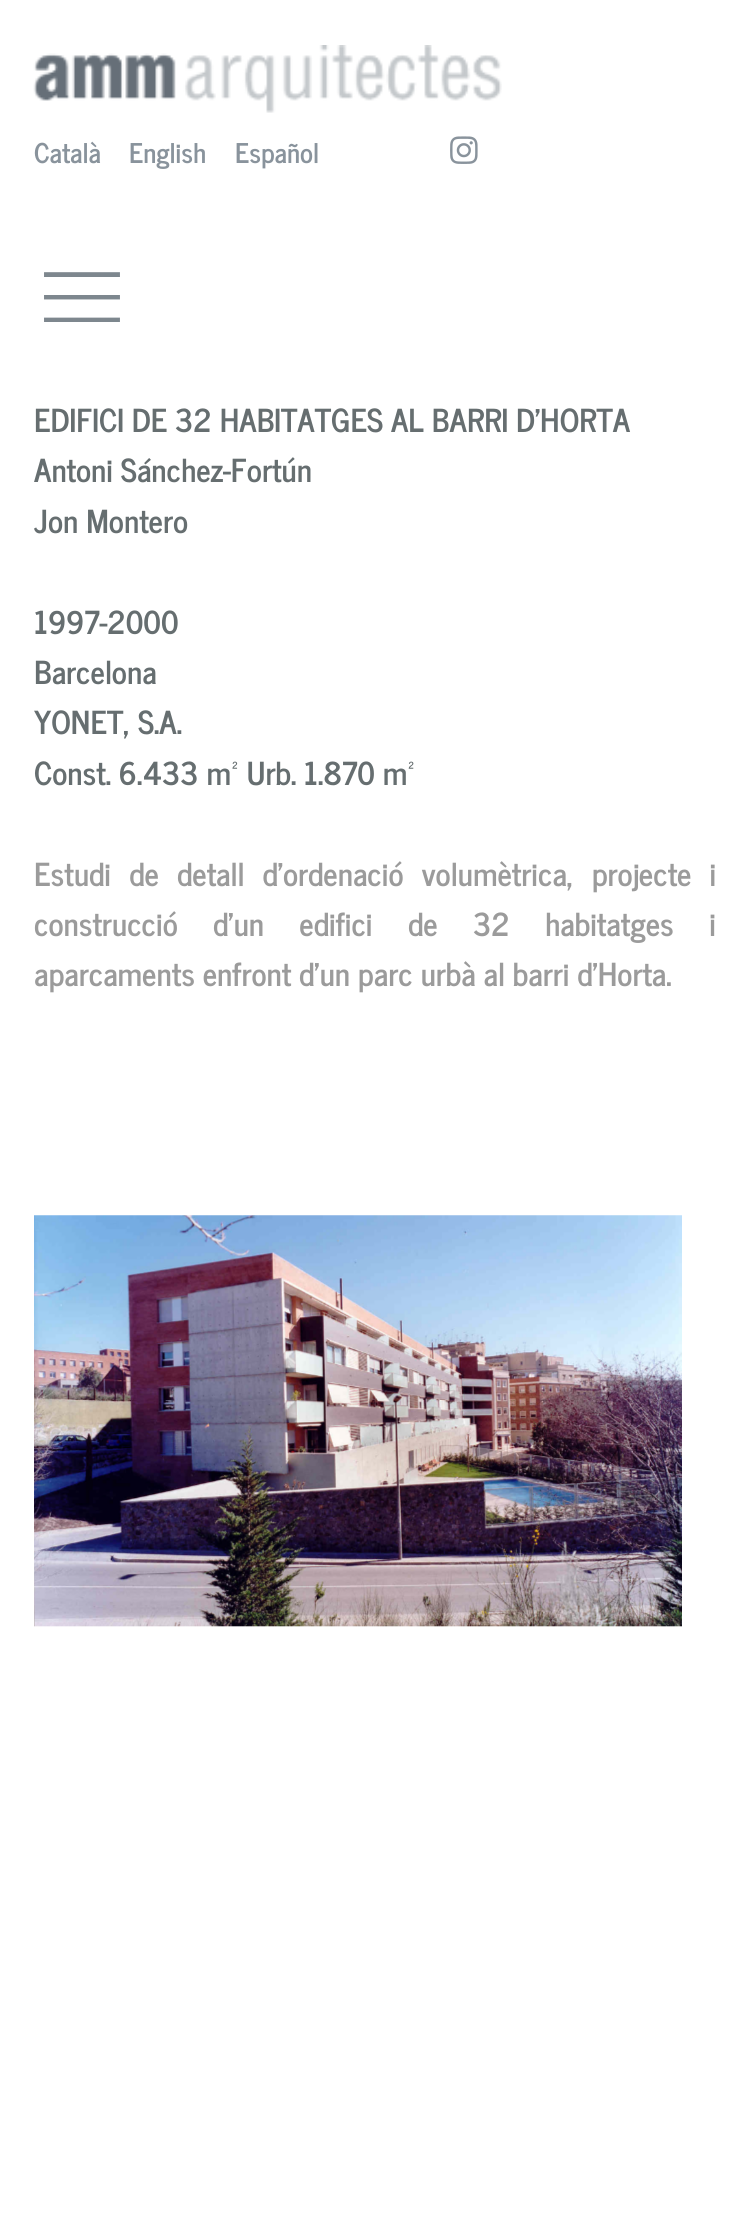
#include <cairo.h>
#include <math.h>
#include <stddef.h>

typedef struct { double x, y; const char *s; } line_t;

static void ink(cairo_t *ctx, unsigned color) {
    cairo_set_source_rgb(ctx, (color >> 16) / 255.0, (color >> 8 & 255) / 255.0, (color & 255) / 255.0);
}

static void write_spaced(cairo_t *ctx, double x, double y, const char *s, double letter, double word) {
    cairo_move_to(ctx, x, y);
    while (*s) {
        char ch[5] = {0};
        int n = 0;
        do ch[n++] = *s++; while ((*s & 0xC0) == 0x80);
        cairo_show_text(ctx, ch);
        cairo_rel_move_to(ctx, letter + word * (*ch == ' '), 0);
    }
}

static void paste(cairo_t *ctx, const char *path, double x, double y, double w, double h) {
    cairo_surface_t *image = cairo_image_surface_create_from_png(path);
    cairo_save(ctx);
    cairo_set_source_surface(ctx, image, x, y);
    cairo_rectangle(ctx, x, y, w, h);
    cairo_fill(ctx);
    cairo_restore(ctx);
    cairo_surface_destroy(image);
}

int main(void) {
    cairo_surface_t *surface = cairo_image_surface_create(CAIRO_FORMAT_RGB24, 749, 2237);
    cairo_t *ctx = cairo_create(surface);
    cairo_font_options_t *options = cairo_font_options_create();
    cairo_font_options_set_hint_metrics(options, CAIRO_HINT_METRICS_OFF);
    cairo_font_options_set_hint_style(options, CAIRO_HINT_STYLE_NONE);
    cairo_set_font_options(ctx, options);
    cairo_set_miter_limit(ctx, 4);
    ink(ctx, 0xFFFFFF);
    cairo_paint(ctx);
    paste(ctx, "media/1.png", 33, 45, 469, 68);
    cairo_select_font_face(ctx, "News Cycle", CAIRO_FONT_SLANT_NORMAL, CAIRO_FONT_WEIGHT_BOLD);
    cairo_set_font_size(ctx, 27);
    ink(ctx, 0x89939C);
    {
        static const line_t items[] = {
            {34, 163, "Català"},
            {129, 163, "English"},
            {235, 163, "Español"},
        };
        for (size_t i = 0; i < sizeof items / sizeof *items; i++) {
            cairo_move_to(ctx, items[i].x, items[i].y);
            cairo_show_text(ctx, items[i].s);
        }
    }
    paste(ctx, "media/2.png", 450, 136, 28, 28);
    paste(ctx, "media/3.png", 44, 272, 76, 50);
    cairo_set_font_size(ctx, 31.5);
    ink(ctx, 0x666E70);
    {
        static const line_t items[] = {
            {34, 432, "EDIFICI DE 32 HABITATGES AL BARRI D'HORTA"},
            {34, 482, "Antoni Sánchez-Fortún"},
            {34, 533, "Jon Montero"},
            {34, 634, "1997-2000"},
            {34, 684, "Barcelona"},
            {34, 734, "YONET, S.A."},
            {34, 785, "Const. 6.433 m² Urb. 1.870 m²"},
        };
        for (size_t i = 0; i < sizeof items / sizeof *items; i++) {
            cairo_move_to(ctx, items[i].x, items[i].y);
            cairo_show_text(ctx, items[i].s);
        }
    }
    ink(ctx, 0x9B9B9B);
    write_spaced(ctx, 34, 886, "Estudi de detall d’ordenació volumètrica, projecte i", 0, 10.25);
    cairo_move_to(ctx, 34, 936);
    cairo_show_text(ctx, "construcció");
    write_spaced(ctx, 213, 936, "d’un edifici de 32 habitatges i", 0, 27.5);
    cairo_move_to(ctx, 34, 986);
    cairo_show_text(ctx, "aparcaments enfront d’un parc urbà al barri d’Horta.");
    paste(ctx, "media/4.png", 34, 1215, 648, 412);
    cairo_surface_write_to_png(surface, "image.png");
    cairo_font_options_destroy(options);
    cairo_destroy(ctx);
    cairo_surface_destroy(surface);
    return 0;
}
